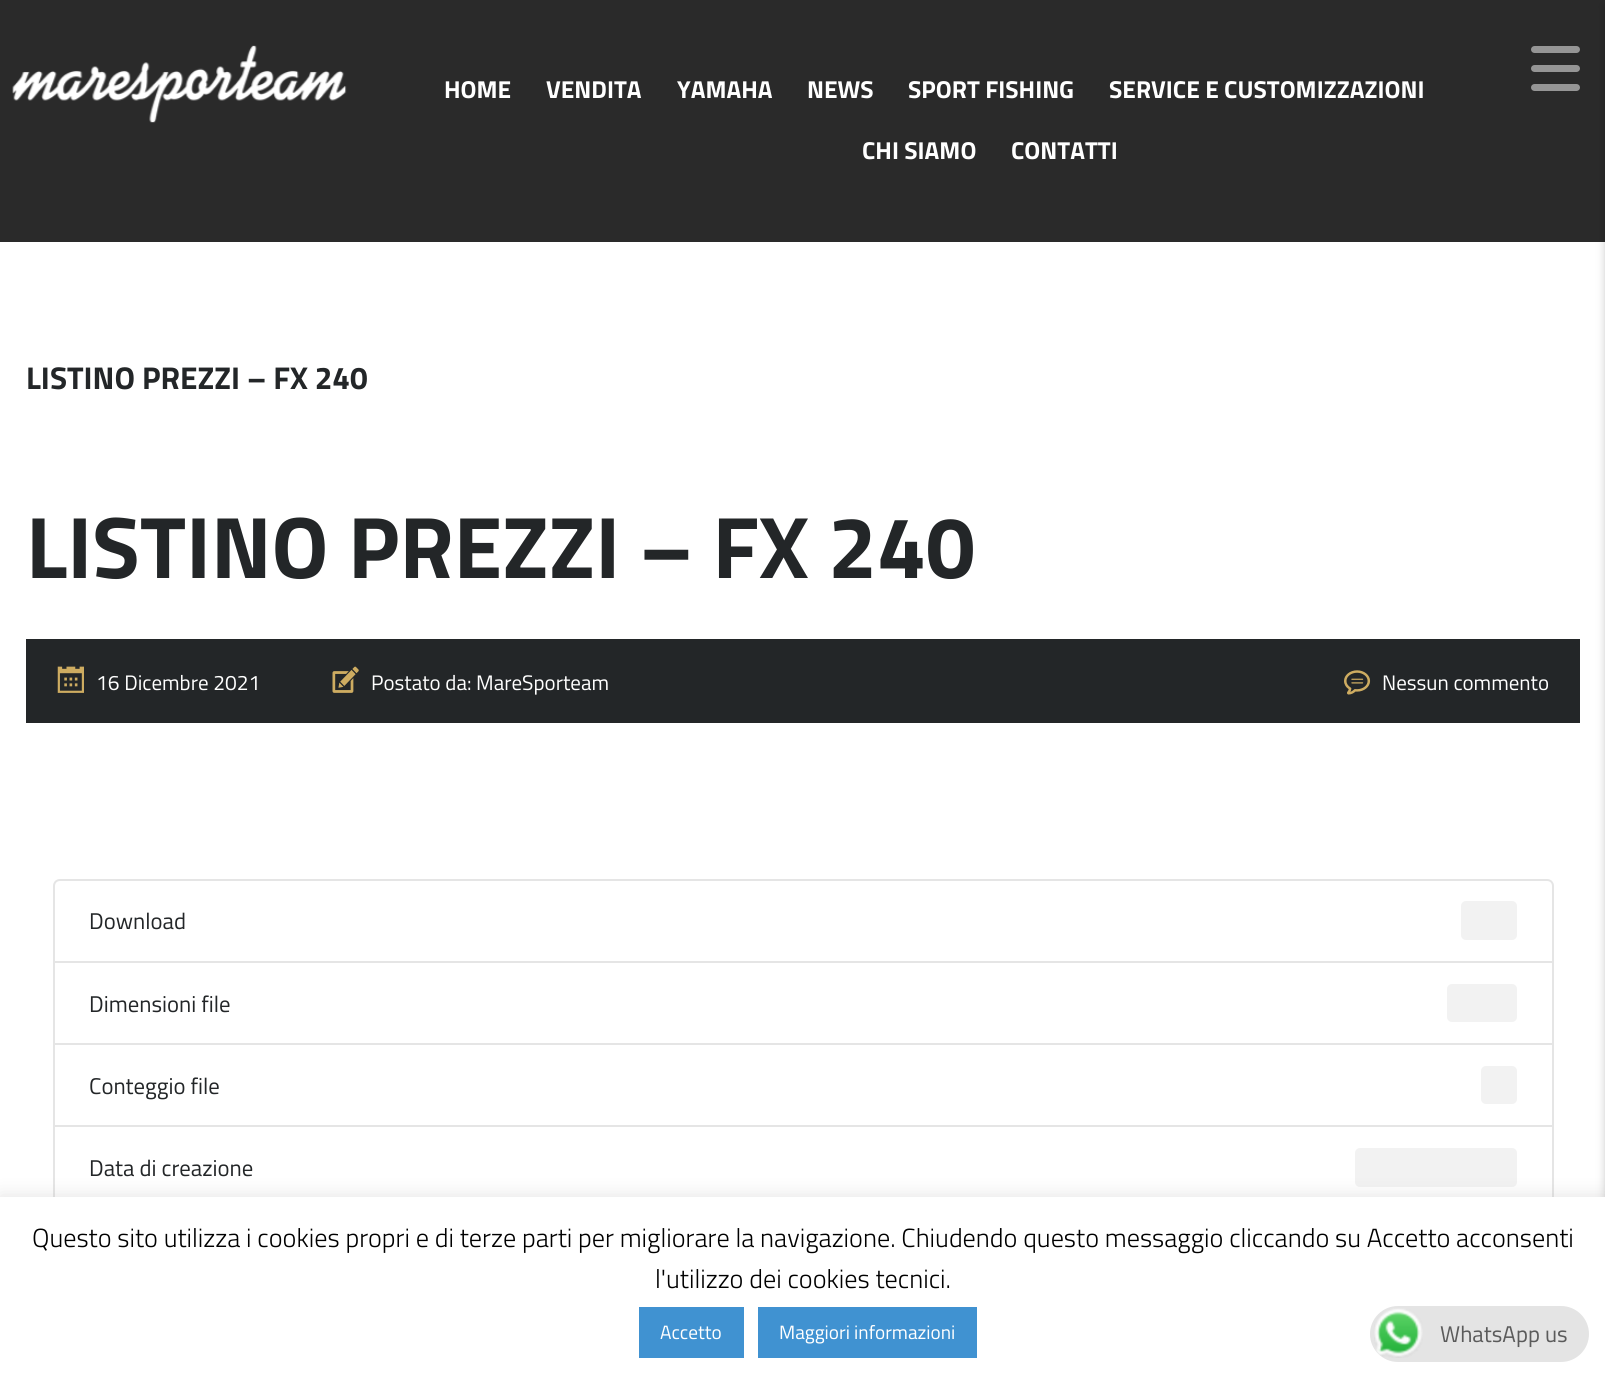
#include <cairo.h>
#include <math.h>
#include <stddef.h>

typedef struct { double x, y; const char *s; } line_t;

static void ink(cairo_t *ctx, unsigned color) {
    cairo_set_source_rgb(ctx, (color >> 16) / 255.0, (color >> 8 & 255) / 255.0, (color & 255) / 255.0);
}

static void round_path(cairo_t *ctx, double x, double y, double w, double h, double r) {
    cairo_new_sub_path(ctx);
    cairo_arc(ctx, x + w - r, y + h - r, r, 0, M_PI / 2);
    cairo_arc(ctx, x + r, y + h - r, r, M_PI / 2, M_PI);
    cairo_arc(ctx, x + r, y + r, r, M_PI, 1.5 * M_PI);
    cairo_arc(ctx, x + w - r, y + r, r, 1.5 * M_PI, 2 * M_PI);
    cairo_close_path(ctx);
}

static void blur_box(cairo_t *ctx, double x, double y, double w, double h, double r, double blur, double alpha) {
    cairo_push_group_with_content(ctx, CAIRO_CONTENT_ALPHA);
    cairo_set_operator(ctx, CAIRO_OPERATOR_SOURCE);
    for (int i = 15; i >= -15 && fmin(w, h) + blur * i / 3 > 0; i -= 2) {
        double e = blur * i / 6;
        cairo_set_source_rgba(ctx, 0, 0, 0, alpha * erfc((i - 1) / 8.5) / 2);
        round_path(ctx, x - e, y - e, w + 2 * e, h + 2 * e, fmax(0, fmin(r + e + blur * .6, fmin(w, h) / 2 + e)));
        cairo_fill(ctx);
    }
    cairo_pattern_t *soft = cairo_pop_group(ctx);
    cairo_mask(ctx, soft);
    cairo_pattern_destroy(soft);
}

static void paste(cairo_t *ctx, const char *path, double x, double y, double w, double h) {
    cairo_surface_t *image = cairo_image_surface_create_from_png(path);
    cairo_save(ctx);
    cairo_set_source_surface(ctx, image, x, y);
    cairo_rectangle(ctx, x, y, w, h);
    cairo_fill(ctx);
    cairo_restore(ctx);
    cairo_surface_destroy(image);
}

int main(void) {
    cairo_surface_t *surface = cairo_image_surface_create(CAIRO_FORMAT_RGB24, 1605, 1378);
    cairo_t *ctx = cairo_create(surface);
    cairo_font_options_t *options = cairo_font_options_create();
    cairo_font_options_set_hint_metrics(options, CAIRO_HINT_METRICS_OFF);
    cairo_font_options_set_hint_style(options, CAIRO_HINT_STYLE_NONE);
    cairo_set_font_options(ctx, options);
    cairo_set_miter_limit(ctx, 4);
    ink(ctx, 0xFFFFFF);
    cairo_paint(ctx);
    ink(ctx, 0x2A2A2A);
    cairo_rectangle(ctx, 0, 0, 1605, 242);
    cairo_fill(ctx);
    paste(ctx, "media/1.png", 12, 45, 335, 78);
    cairo_select_font_face(ctx, "Titillium Web", CAIRO_FONT_SLANT_NORMAL, CAIRO_FONT_WEIGHT_BOLD);
    cairo_set_font_size(ctx, 24.5);
    ink(ctx, 0xFFFFFF);
    {
        static const line_t items[] = {
            {444, 98, "HOME"},
            {546, 98, "VENDITA"},
            {677, 98, "YAMAHA"},
            {807, 98, "NEWS"},
            {908, 98, "SPORT FISHING"},
            {1109, 98, "SERVICE E CUSTOMIZZAZIONI"},
            {862, 159, "CHI SIAMO"},
            {1011, 159, "CONTATTI"},
        };
        for (size_t i = 0; i < sizeof items / sizeof *items; i++) {
            cairo_move_to(ctx, items[i].x, items[i].y);
            cairo_show_text(ctx, items[i].s);
        }
    }
    ink(ctx, 0x959595);
    round_path(ctx, 1531, 46, 49, 7, 3.5);
    cairo_fill(ctx);
    round_path(ctx, 1531, 65, 49, 7, 3.5);
    cairo_fill(ctx);
    round_path(ctx, 1531, 84, 49, 7, 3.5);
    cairo_fill(ctx);
    ink(ctx, 0x000000);
    blur_box(ctx, 1605, 5, 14, 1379, 0, 4.5, 0.2);
    cairo_set_font_size(ctx, 31.5);
    ink(ctx, 0x232628);
    cairo_move_to(ctx, 26, 389);
    cairo_show_text(ctx, "LISTINO PREZZI – FX 240");
    cairo_set_font_size(ctx, 87.5);
    cairo_move_to(ctx, 26, 578);
    cairo_show_text(ctx, "LISTINO PREZZI – FX 240");
    cairo_rectangle(ctx, 26, 639, 1554, 84);
    cairo_fill(ctx);
    paste(ctx, "media/2.png", 57, 666, 27, 27);
    cairo_select_font_face(ctx, "Titillium Web", CAIRO_FONT_SLANT_NORMAL, CAIRO_FONT_WEIGHT_NORMAL);
    cairo_set_font_size(ctx, 21);
    ink(ctx, 0xFFFFFF);
    cairo_move_to(ctx, 96, 690);
    cairo_show_text(ctx, "16 Dicembre 2021");
    paste(ctx, "media/3.png", 332, 666, 27, 27);
    cairo_move_to(ctx, 371, 690);
    cairo_show_text(ctx, "Postato da: MareSporteam");
    paste(ctx, "media/4.png", 1344, 670, 27, 25);
    cairo_move_to(ctx, 1382, 690);
    cairo_show_text(ctx, "Nessun commento");
    cairo_new_path(ctx);
    cairo_move_to(ctx, 60, 880);
    cairo_line_to(ctx, 1547, 880);
    cairo_curve_to(ctx, 1550.5, 880, 1553, 882.5, 1553, 886);
    cairo_line_to(ctx, 1553, 962);
    cairo_line_to(ctx, 54, 962);
    cairo_line_to(ctx, 54, 886);
    cairo_curve_to(ctx, 54, 882.5, 56.5, 880, 60, 880);
    cairo_close_path(ctx);
    ink(ctx, 0xE5E5E5);
    cairo_stroke(ctx);
    cairo_set_font_size(ctx, 22.75);
    ink(ctx, 0x232628);
    cairo_move_to(ctx, 89, 929);
    cairo_show_text(ctx, "Download");
    ink(ctx, 0xF2F2F2);
    round_path(ctx, 1461, 901, 56, 39, 5);
    cairo_fill(ctx);
    cairo_rectangle(ctx, 54, 962, 1499, 82);
    ink(ctx, 0xE5E5E5);
    cairo_stroke(ctx);
    ink(ctx, 0x232628);
    cairo_move_to(ctx, 89, 1012);
    cairo_show_text(ctx, "Dimensioni file");
    ink(ctx, 0xF2F2F2);
    round_path(ctx, 1447, 984, 70, 38, 5);
    cairo_fill(ctx);
    cairo_rectangle(ctx, 54, 1044, 1499, 82);
    ink(ctx, 0xE5E5E5);
    cairo_stroke(ctx);
    ink(ctx, 0x232628);
    cairo_move_to(ctx, 89, 1094);
    cairo_show_text(ctx, "Conteggio file");
    ink(ctx, 0xF2F2F2);
    round_path(ctx, 1481, 1066, 36, 38, 5);
    cairo_fill(ctx);
    cairo_rectangle(ctx, 54, 1126, 1499, 82);
    ink(ctx, 0xE5E5E5);
    cairo_stroke(ctx);
    ink(ctx, 0x232628);
    cairo_move_to(ctx, 89, 1176);
    cairo_show_text(ctx, "Data di creazione");
    ink(ctx, 0xF2F2F2);
    round_path(ctx, 1355, 1148, 162, 39, 5);
    cairo_fill(ctx);
    ink(ctx, 0xACABAB);
    blur_box(ctx, 0, 1195, 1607, 182, 0, 9, 0.3);
    ink(ctx, 0xFFFFFF);
    cairo_rectangle(ctx, 0, 1197, 1605, 181);
    cairo_fill(ctx);
    cairo_select_font_face(ctx, "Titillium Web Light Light", CAIRO_FONT_SLANT_NORMAL, CAIRO_FONT_WEIGHT_NORMAL);
    cairo_set_font_size(ctx, 26.25);
    ink(ctx, 0x000000);
    cairo_move_to(ctx, 32, 1247);
    cairo_show_text(ctx, "Questo sito utilizza i cookies propri e di terze parti per migliorare la navigazione. Chiudendo questo messaggio cliccando su Accetto acconsenti");
    cairo_move_to(ctx, 655, 1288);
    cairo_show_text(ctx, "l'utilizzo dei cookies tecnici.");
    ink(ctx, 0x4092D1);
    cairo_rectangle(ctx, 639, 1307, 105, 51);
    cairo_fill(ctx);
    cairo_select_font_face(ctx, "Titillium Web", CAIRO_FONT_SLANT_NORMAL, CAIRO_FONT_WEIGHT_NORMAL);
    cairo_set_font_size(ctx, 19.25);
    ink(ctx, 0xFFFFFF);
    cairo_move_to(ctx, 660, 1339);
    cairo_show_text(ctx, "Accetto");
    ink(ctx, 0x4092D1);
    cairo_rectangle(ctx, 758, 1307, 219, 51);
    cairo_fill(ctx);
    ink(ctx, 0xFFFFFF);
    cairo_move_to(ctx, 779, 1339);
    cairo_show_text(ctx, "Maggiori informazioni");
    ink(ctx, 0xE4E4E4);
    round_path(ctx, 1370, 1306, 219, 56, 28);
    cairo_fill(ctx);
    paste(ctx, "media/5.png", 1374, 1308, 49, 50);
    cairo_set_font_size(ctx, 22.75);
    ink(ctx, 0x5B5B5B);
    cairo_move_to(ctx, 1440, 1342);
    cairo_show_text(ctx, "WhatsApp us");
    cairo_surface_write_to_png(surface, "image.png");
    cairo_font_options_destroy(options);
    cairo_destroy(ctx);
    cairo_surface_destroy(surface);
    return 0;
}
